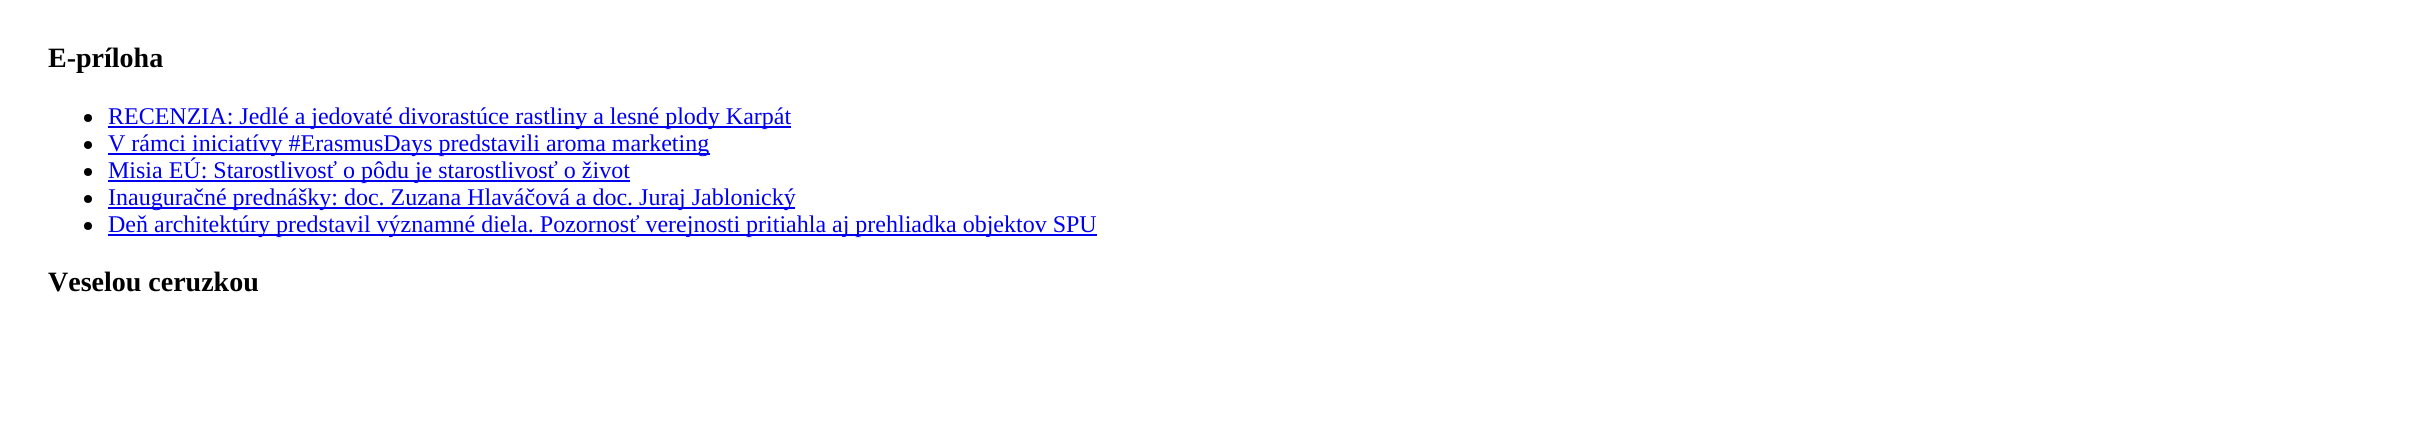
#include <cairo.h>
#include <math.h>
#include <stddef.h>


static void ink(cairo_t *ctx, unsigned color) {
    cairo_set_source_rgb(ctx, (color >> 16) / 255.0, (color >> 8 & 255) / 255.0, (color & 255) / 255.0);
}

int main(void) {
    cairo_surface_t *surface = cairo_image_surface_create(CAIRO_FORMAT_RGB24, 2414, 446);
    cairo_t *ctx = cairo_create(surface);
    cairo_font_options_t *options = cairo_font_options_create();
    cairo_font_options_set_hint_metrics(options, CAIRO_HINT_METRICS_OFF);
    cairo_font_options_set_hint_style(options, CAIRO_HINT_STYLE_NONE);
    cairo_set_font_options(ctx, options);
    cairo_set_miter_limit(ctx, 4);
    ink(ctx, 0xFFFFFF);
    cairo_paint(ctx);
    cairo_select_font_face(ctx, "Liberation Serif", CAIRO_FONT_SLANT_NORMAL, CAIRO_FONT_WEIGHT_BOLD);
    cairo_set_font_size(ctx, 28);
    ink(ctx, 0x000000);
    cairo_move_to(ctx, 48, 67);
    cairo_show_text(ctx, "E-príloha");
    cairo_new_path(ctx);
    cairo_arc(ctx, 88, 118, 4, 0, 2 * M_PI);
    cairo_fill(ctx);
    ink(ctx, 0x0000EE);
    cairo_rectangle(ctx, 108, 126, 683, 2);
    cairo_fill(ctx);
    cairo_select_font_face(ctx, "Liberation Serif", CAIRO_FONT_SLANT_NORMAL, CAIRO_FONT_WEIGHT_NORMAL);
    cairo_set_font_size(ctx, 24);
    cairo_move_to(ctx, 108, 124);
    cairo_show_text(ctx, "RECENZIA: Jedlé a jedovaté divorastúce rastliny a lesné plody Karpát");
    ink(ctx, 0x000000);
    cairo_new_path(ctx);
    cairo_arc(ctx, 88, 145, 4, 0, 2 * M_PI);
    cairo_fill(ctx);
    ink(ctx, 0x0000EE);
    cairo_rectangle(ctx, 108, 153, 602, 2);
    cairo_fill(ctx);
    cairo_move_to(ctx, 108, 151);
    cairo_show_text(ctx, "V rámci iniciatívy #ErasmusDays predstavili aroma marketing");
    ink(ctx, 0x000000);
    cairo_new_path(ctx);
    cairo_arc(ctx, 88, 172, 4, 0, 2 * M_PI);
    cairo_fill(ctx);
    ink(ctx, 0x0000EE);
    cairo_rectangle(ctx, 108, 180, 522, 2);
    cairo_fill(ctx);
    cairo_move_to(ctx, 108, 178);
    cairo_show_text(ctx, "Misia EÚ: Starostlivosť o pôdu je starostlivosť o život");
    ink(ctx, 0x000000);
    cairo_new_path(ctx);
    cairo_arc(ctx, 88, 199, 4, 0, 2 * M_PI);
    cairo_fill(ctx);
    ink(ctx, 0x0000EE);
    cairo_rectangle(ctx, 108, 207, 687, 2);
    cairo_fill(ctx);
    cairo_move_to(ctx, 108, 205);
    cairo_show_text(ctx, "Inauguračné prednášky: doc. Zuzana Hlaváčová a doc. Juraj Jablonický");
    ink(ctx, 0x000000);
    cairo_new_path(ctx);
    cairo_arc(ctx, 88, 226, 4, 0, 2 * M_PI);
    cairo_fill(ctx);
    ink(ctx, 0x0000EE);
    cairo_rectangle(ctx, 108, 234, 989, 2);
    cairo_fill(ctx);
    cairo_move_to(ctx, 108, 232);
    cairo_show_text(ctx, "Deň architektúry predstavil významné diela. Pozornosť verejnosti pritiahla aj prehliadka objektov SPU");
    cairo_select_font_face(ctx, "Liberation Serif", CAIRO_FONT_SLANT_NORMAL, CAIRO_FONT_WEIGHT_BOLD);
    cairo_set_font_size(ctx, 28);
    ink(ctx, 0x000000);
    cairo_move_to(ctx, 48, 291);
    cairo_show_text(ctx, "Veselou ceruzkou");
    cairo_surface_write_to_png(surface, "image.png");
    cairo_font_options_destroy(options);
    cairo_destroy(ctx);
    cairo_surface_destroy(surface);
    return 0;
}
